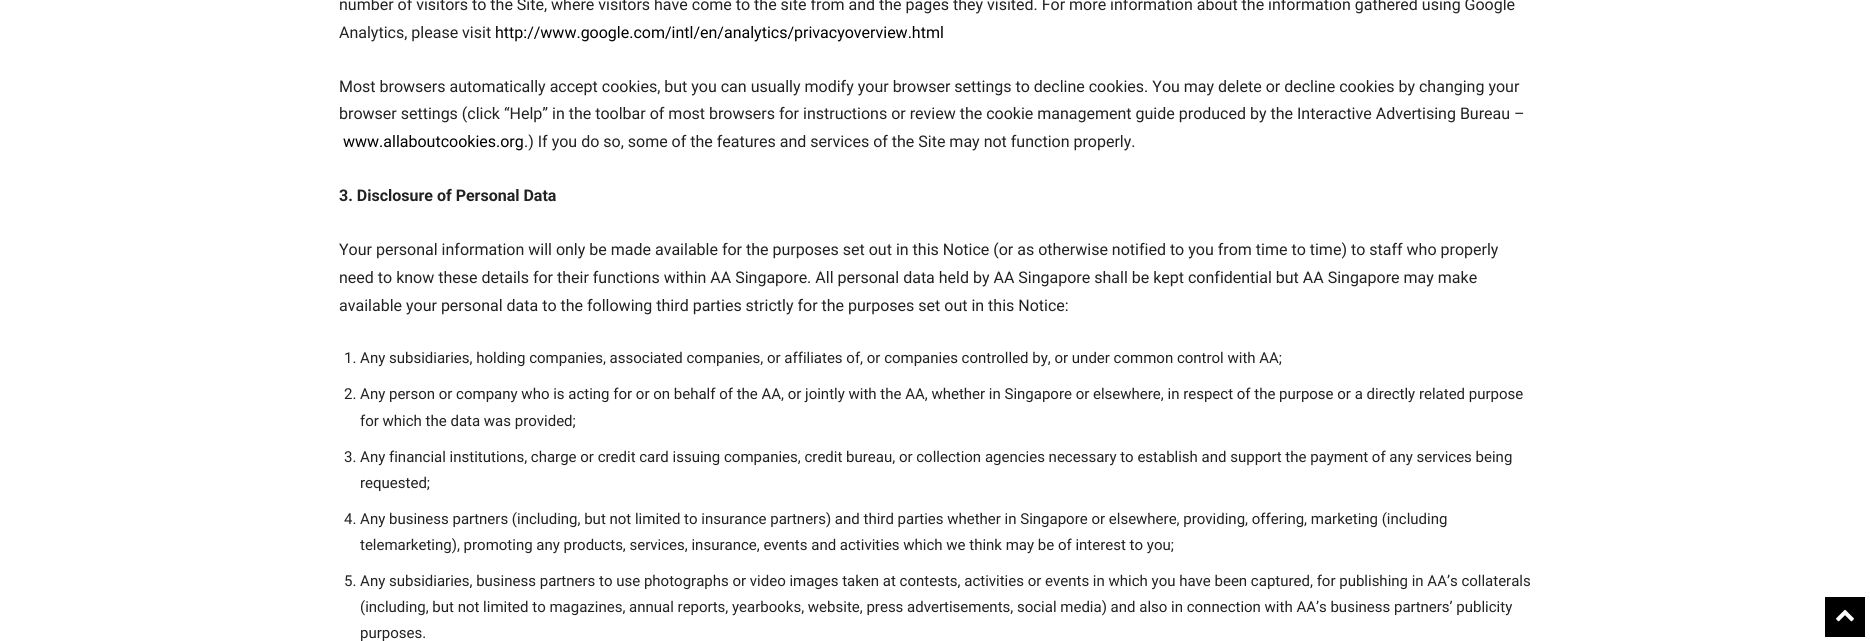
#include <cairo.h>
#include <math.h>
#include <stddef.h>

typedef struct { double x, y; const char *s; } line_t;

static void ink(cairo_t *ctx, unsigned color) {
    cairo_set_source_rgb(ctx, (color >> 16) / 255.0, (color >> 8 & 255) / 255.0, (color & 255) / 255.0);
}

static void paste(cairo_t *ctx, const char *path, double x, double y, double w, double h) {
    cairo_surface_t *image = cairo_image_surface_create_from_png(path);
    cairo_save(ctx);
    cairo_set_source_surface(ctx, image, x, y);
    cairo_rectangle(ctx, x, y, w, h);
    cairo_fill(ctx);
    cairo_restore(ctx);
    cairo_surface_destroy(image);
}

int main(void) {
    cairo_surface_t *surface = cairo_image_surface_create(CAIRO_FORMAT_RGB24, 1870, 641);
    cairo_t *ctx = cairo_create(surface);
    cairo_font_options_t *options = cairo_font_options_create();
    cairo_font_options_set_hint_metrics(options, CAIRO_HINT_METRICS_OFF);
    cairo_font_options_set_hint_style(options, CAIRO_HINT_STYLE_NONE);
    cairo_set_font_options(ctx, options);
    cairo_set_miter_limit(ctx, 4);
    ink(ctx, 0xFFFFFF);
    cairo_paint(ctx);
    cairo_select_font_face(ctx, "Roboto", CAIRO_FONT_SLANT_NORMAL, CAIRO_FONT_WEIGHT_NORMAL);
    cairo_set_font_size(ctx, 16);
    ink(ctx, 0x222222);
    cairo_move_to(ctx, 339, 10);
    cairo_show_text(ctx, "number of visitors to the Site, where visitors have come to the site from and the pages they visited. For more information about the information gathered using Google");
    cairo_move_to(ctx, 339, 38);
    cairo_show_text(ctx, "Analytics, please visit");
    ink(ctx, 0x000000);
    cairo_move_to(ctx, 495, 38);
    cairo_show_text(ctx, "http://www.google.com/intl/en/analytics/privacyoverview.html");
    ink(ctx, 0x222222);
    cairo_move_to(ctx, 339, 92);
    cairo_show_text(ctx, "Most browsers automatically accept cookies, but you can usually modify your browser settings to decline cookies. You may delete or decline cookies by changing your");
    cairo_move_to(ctx, 339, 119);
    cairo_show_text(ctx, "browser settings (click “Help” in the toolbar of most browsers for instructions or review the cookie management guide produced by the Interactive Advertising Bureau –");
    ink(ctx, 0x000000);
    cairo_move_to(ctx, 343, 147);
    cairo_show_text(ctx, "www.allaboutcookies.org");
    ink(ctx, 0x222222);
    cairo_move_to(ctx, 524, 147);
    cairo_show_text(ctx, ".) If you do so, some of the features and services of the Site may not function properly.");
    cairo_select_font_face(ctx, "Roboto", CAIRO_FONT_SLANT_NORMAL, CAIRO_FONT_WEIGHT_BOLD);
    cairo_move_to(ctx, 339, 201);
    cairo_show_text(ctx, "3. Disclosure of Personal Data");
    cairo_select_font_face(ctx, "Roboto", CAIRO_FONT_SLANT_NORMAL, CAIRO_FONT_WEIGHT_NORMAL);
    {
        static const line_t items[] = {
            {339, 255, "Your personal information will only be made available for the purposes set out in this Notice (or as otherwise notified to you from time to time) to staff who properly"},
            {339, 283, "need to know these details for their functions within AA Singapore. All personal data held by AA Singapore shall be kept confidential but AA Singapore may make"},
            {339, 311, "available your personal data to the following third parties strictly for the purposes set out in this Notice:"},
        };
        for (size_t i = 0; i < sizeof items / sizeof *items; i++) {
            cairo_move_to(ctx, items[i].x, items[i].y);
            cairo_show_text(ctx, items[i].s);
        }
    }
    cairo_set_font_size(ctx, 15);
    {
        static const line_t items[] = {
            {344, 363, "1. Any subsidiaries, holding companies, associated companies, or affiliates of, or companies controlled by, or under common control with AA;"},
            {344, 399, "2. Any person or company who is acting for or on behalf of the AA, or jointly with the AA, whether in Singapore or elsewhere, in respect of the purpose or a directly related purpose"},
            {360, 426, "for which the data was provided;"},
            {344, 462, "3. Any financial institutions, charge or credit card issuing companies, credit bureau, or collection agencies necessary to establish and support the payment of any services being"},
            {360, 488, "requested;"},
            {344, 524, "4. Any business partners (including, but not limited to insurance partners) and third parties whether in Singapore or elsewhere, providing, offering, marketing (including"},
            {360, 550, "telemarketing), promoting any products, services, insurance, events and activities which we think may be of interest to you;"},
            {344, 586, "5. Any subsidiaries, business partners to use photographs or video images taken at contests, activities or events in which you have been captured, for publishing in AA’s collaterals"},
            {360, 612, "(including, but not limited to magazines, annual reports, yearbooks, website, press advertisements, social media) and also in connection with AA’s business partners’ publicity"},
            {360, 638, "purposes."},
        };
        for (size_t i = 0; i < sizeof items / sizeof *items; i++) {
            cairo_move_to(ctx, items[i].x, items[i].y);
            cairo_show_text(ctx, items[i].s);
        }
    }
    ink(ctx, 0x000000);
    cairo_rectangle(ctx, 1825, 597, 40, 40);
    cairo_fill(ctx);
    paste(ctx, "media/1.png", 1836, 609, 18, 13);
    cairo_surface_write_to_png(surface, "image.png");
    cairo_font_options_destroy(options);
    cairo_destroy(ctx);
    cairo_surface_destroy(surface);
    return 0;
}
